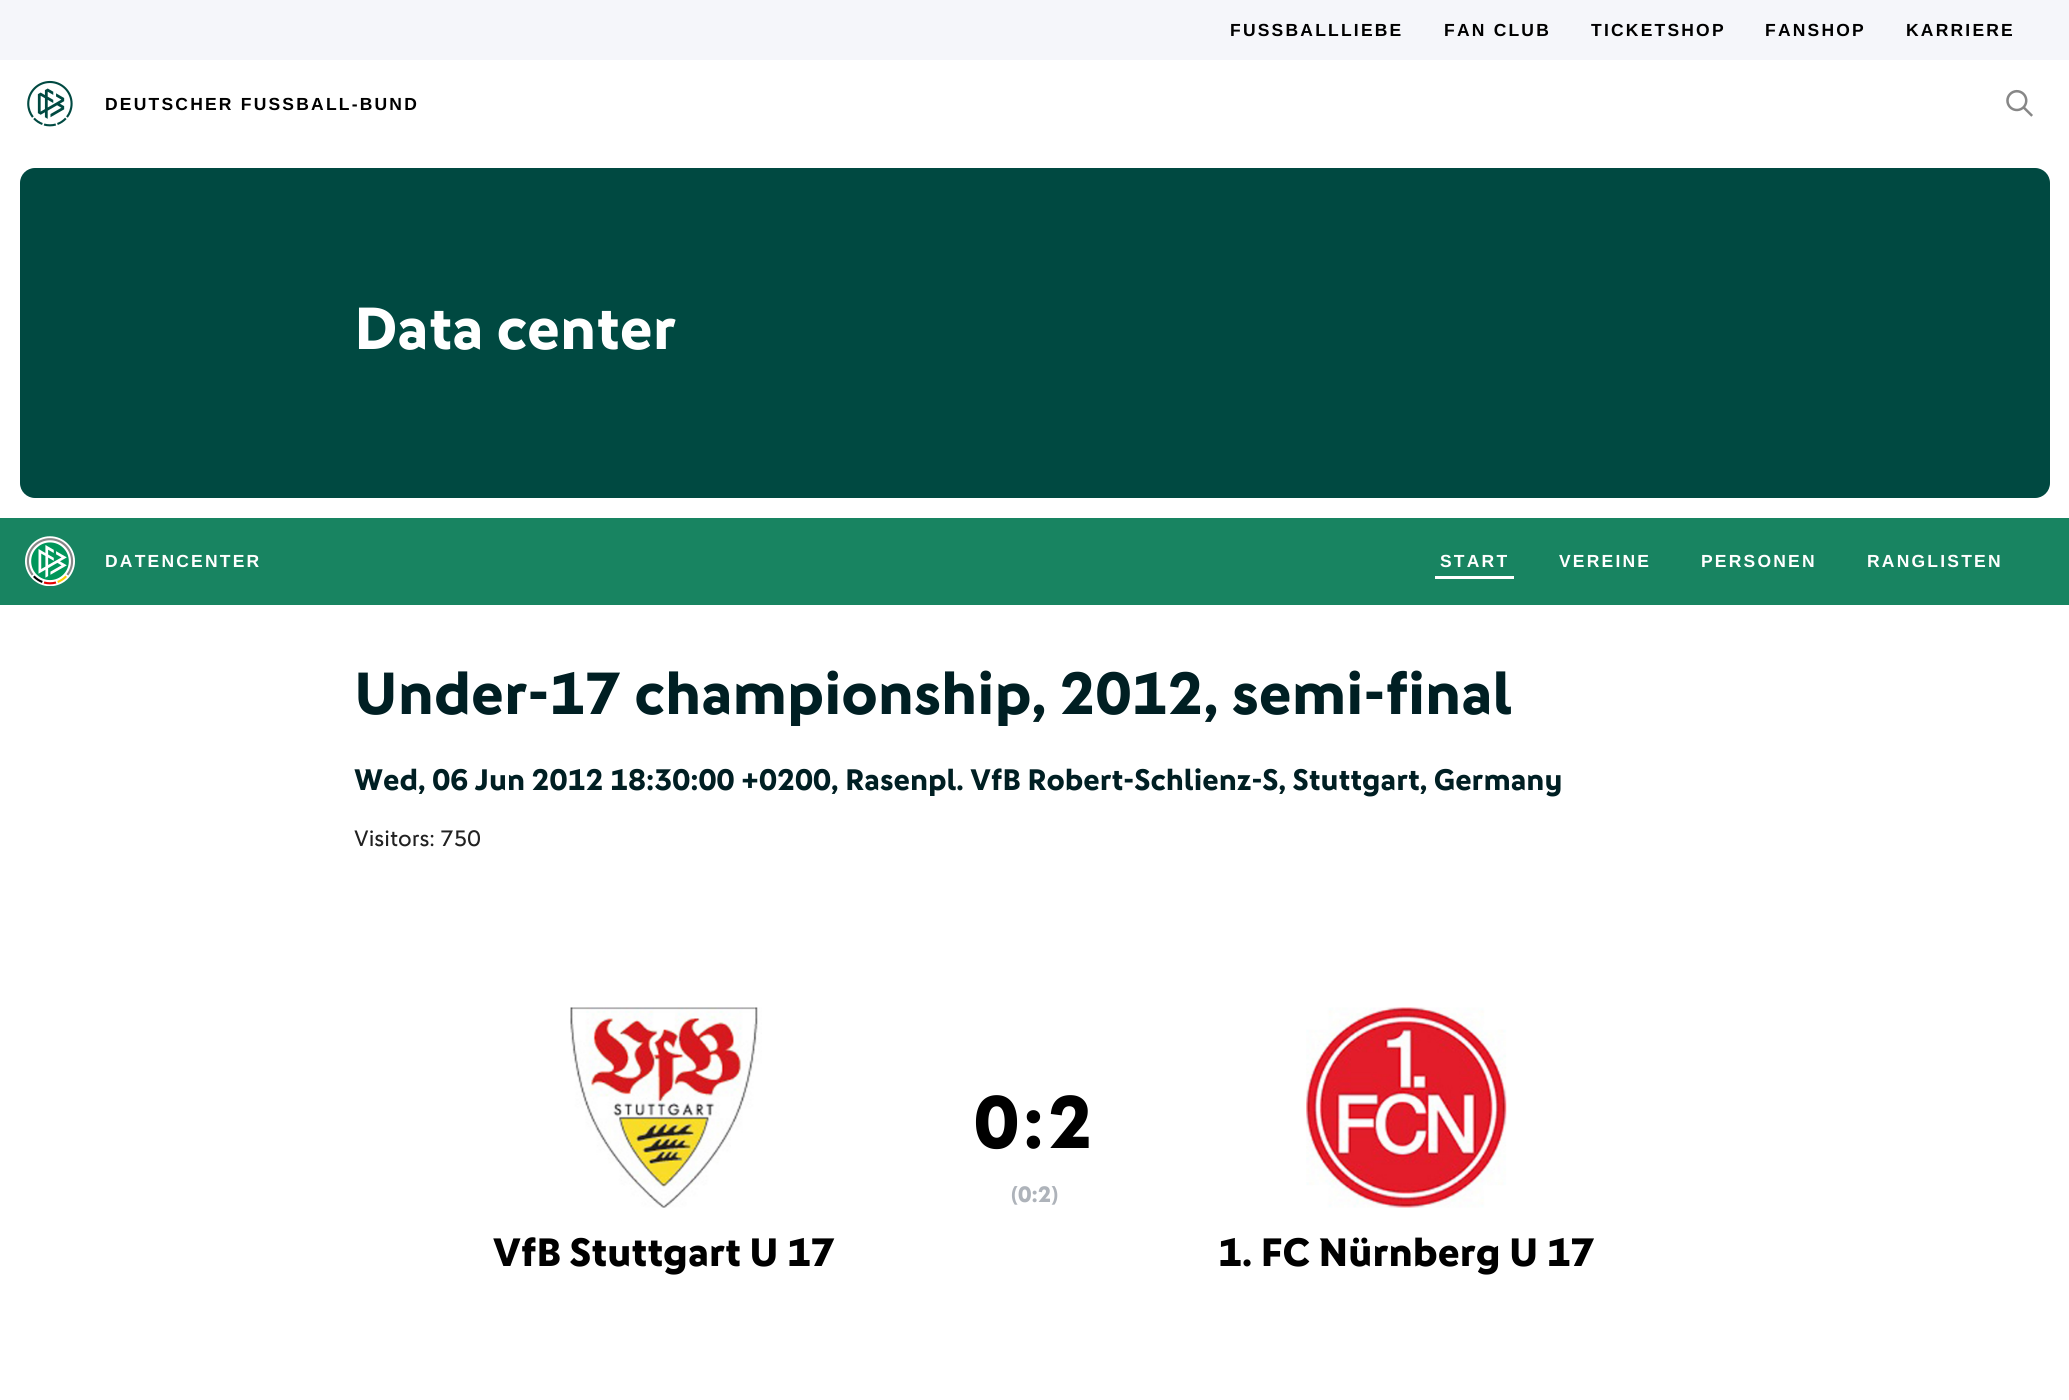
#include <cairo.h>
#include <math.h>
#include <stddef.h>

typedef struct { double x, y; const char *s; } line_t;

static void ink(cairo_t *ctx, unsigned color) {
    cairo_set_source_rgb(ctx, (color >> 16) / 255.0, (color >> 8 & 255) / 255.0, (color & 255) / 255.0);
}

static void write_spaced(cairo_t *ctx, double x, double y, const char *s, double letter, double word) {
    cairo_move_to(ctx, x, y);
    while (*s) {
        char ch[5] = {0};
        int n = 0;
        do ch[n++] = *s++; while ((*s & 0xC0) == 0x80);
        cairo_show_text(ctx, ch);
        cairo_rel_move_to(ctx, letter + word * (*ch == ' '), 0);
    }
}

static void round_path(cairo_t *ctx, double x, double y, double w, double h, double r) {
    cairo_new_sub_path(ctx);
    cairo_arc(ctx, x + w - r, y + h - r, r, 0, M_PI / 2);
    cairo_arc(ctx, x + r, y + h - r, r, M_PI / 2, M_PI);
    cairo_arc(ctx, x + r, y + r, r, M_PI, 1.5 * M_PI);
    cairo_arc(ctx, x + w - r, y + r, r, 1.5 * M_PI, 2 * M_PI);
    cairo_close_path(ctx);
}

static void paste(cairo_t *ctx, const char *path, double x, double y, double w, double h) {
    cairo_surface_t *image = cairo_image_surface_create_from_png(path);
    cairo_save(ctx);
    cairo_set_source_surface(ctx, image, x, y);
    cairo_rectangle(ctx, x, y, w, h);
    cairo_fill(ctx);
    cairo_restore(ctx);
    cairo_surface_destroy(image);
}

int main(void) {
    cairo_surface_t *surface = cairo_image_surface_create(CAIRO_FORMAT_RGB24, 2069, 1400);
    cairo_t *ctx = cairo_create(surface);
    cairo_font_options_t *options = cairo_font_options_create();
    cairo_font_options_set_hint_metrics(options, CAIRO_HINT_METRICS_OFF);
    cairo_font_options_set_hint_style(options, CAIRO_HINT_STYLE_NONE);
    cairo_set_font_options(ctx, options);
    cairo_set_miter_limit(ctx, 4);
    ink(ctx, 0xFFFFFF);
    cairo_paint(ctx);
    ink(ctx, 0xF5F6FA);
    cairo_rectangle(ctx, 0, 0, 2069, 60);
    cairo_fill(ctx);
    cairo_select_font_face(ctx, "Liberation Sans", CAIRO_FONT_SLANT_NORMAL, CAIRO_FONT_WEIGHT_BOLD);
    cairo_set_font_size(ctx, 17.5);
    ink(ctx, 0x000000);
    {
        static const line_t items[] = {
            {1230, 36, "FUSSBALLLIEBE"},
            {1444, 36, "FAN CLUB"},
            {1591, 36, "TICKETSHOP"},
            {1765, 36, "FANSHOP"},
            {1906, 36, "KARRIERE"},
        };
        for (size_t i = 0; i < sizeof items / sizeof *items; i++) {
            write_spaced(ctx, items[i].x, items[i].y, items[i].s, 2.2, 0);
        }
    }
    paste(ctx, "media/1.png", 27, 80, 46, 47);
    write_spaced(ctx, 105, 110, "DEUTSCHER FUSSBALL-BUND", 2.2, 0);
    paste(ctx, "media/2.png", 2006, 89, 27, 28);
    ink(ctx, 0x004941);
    round_path(ctx, 20, 168, 2030, 330, 15);
    cairo_fill(ctx);
    cairo_select_font_face(ctx, "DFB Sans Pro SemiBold", CAIRO_FONT_SLANT_NORMAL, CAIRO_FONT_WEIGHT_NORMAL);
    cairo_set_font_size(ctx, 60);
    ink(ctx, 0xFFFFFF);
    cairo_move_to(ctx, 354, 349);
    cairo_show_text(ctx, "Data center");
    ink(ctx, 0x188461);
    cairo_rectangle(ctx, 0, 518, 2069, 87);
    cairo_fill(ctx);
    paste(ctx, "media/3.png", 25, 536, 50, 50);
    cairo_select_font_face(ctx, "Liberation Sans", CAIRO_FONT_SLANT_NORMAL, CAIRO_FONT_WEIGHT_BOLD);
    cairo_set_font_size(ctx, 17.5);
    ink(ctx, 0xFFFFFF);
    write_spaced(ctx, 105, 567, "DATENCENTER", 2.2, 0);
    write_spaced(ctx, 1440, 567, "START", 2.2, 0);
    cairo_rectangle(ctx, 1435, 576, 79, 3);
    cairo_fill(ctx);
    {
        static const line_t items[] = {
            {1559, 567, "VEREINE"},
            {1701, 567, "PERSONEN"},
            {1867, 567, "RANGLISTEN"},
        };
        for (size_t i = 0; i < sizeof items / sizeof *items; i++) {
            write_spaced(ctx, items[i].x, items[i].y, items[i].s, 2.2, 0);
        }
    }
    cairo_select_font_face(ctx, "DFB Sans Pro SemiBold", CAIRO_FONT_SLANT_NORMAL, CAIRO_FONT_WEIGHT_NORMAL);
    cairo_set_font_size(ctx, 60);
    ink(ctx, 0x001F23);
    cairo_move_to(ctx, 354, 714);
    cairo_show_text(ctx, "Under-17 championship, 2012, semi-final");
    cairo_set_font_size(ctx, 30);
    cairo_move_to(ctx, 354, 790);
    cairo_show_text(ctx, "Wed, 06 Jun 2012 18:30:00 +0200, Rasenpl. VfB Robert-Schlienz-S, Stuttgart, Germany");
    cairo_select_font_face(ctx, "DFB Sans Pro", CAIRO_FONT_SLANT_NORMAL, CAIRO_FONT_WEIGHT_NORMAL);
    cairo_set_font_size(ctx, 22.5);
    ink(ctx, 0x212121);
    cairo_move_to(ctx, 354, 846);
    cairo_show_text(ctx, "Visitors: 750");
    cairo_select_font_face(ctx, "DFB Sans Pro", CAIRO_FONT_SLANT_NORMAL, CAIRO_FONT_WEIGHT_BOLD);
    cairo_set_font_size(ctx, 75);
    ink(ctx, 0x000000);
    write_spaced(ctx, 974, 1148, "0:2", 4, 0);
    cairo_set_font_size(ctx, 22.5);
    ink(ctx, 0xAEB3BA);
    cairo_move_to(ctx, 1011, 1202);
    cairo_show_text(ctx, "(0:2)");
    paste(ctx, "media/4.png", 570, 1007, 192, 201);
    cairo_set_font_size(ctx, 40);
    ink(ctx, 0x000000);
    cairo_move_to(ctx, 493, 1266);
    cairo_show_text(ctx, "VfB Stuttgart U 17");
    paste(ctx, "media/5.png", 1306, 1007, 201, 201);
    cairo_move_to(ctx, 1218, 1266);
    cairo_show_text(ctx, "1. FC Nürnberg U 17");
    cairo_surface_write_to_png(surface, "image.png");
    cairo_font_options_destroy(options);
    cairo_destroy(ctx);
    cairo_surface_destroy(surface);
    return 0;
}
